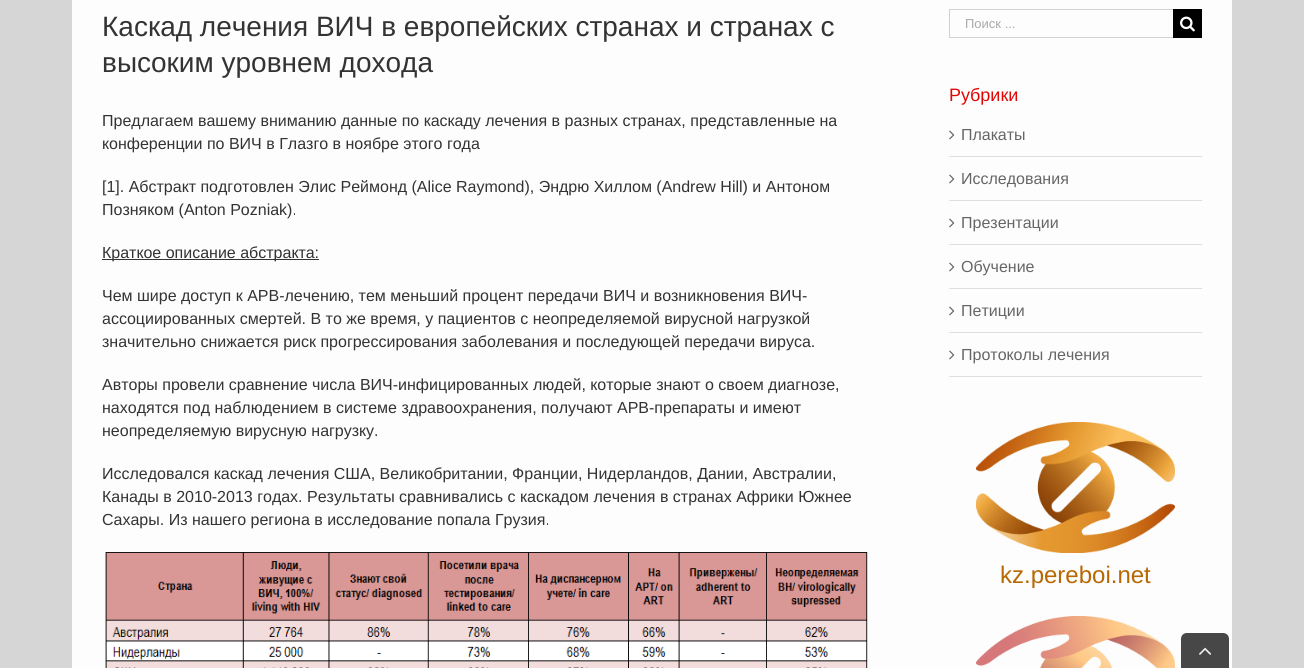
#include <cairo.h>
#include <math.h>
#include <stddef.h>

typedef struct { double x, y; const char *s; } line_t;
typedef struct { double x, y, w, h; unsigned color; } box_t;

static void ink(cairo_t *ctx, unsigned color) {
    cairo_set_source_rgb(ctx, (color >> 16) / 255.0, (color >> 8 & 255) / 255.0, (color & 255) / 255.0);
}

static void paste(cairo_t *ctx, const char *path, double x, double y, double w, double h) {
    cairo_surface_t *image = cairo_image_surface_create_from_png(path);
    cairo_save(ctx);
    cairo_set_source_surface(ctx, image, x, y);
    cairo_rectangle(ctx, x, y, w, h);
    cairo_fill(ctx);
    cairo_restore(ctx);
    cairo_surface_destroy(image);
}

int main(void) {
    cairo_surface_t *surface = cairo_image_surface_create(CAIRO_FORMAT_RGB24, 1304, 668);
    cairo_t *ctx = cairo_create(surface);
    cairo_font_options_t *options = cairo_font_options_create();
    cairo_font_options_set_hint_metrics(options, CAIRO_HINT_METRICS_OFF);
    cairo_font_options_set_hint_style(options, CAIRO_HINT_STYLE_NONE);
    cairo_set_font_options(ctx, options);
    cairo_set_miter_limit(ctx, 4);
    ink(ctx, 0xD7D6D6);
    cairo_paint(ctx);
    ink(ctx, 0xFDFDFD);
    cairo_rectangle(ctx, 72, 0, 1160, 668);
    cairo_fill(ctx);
    cairo_select_font_face(ctx, "Liberation Sans", CAIRO_FONT_SLANT_NORMAL, CAIRO_FONT_WEIGHT_NORMAL);
    cairo_set_font_size(ctx, 28);
    ink(ctx, 0x333333);
    cairo_move_to(ctx, 102, 36);
    cairo_show_text(ctx, "Каскад лечения ВИЧ в европейских странах и странах с");
    cairo_move_to(ctx, 102, 72);
    cairo_show_text(ctx, "высоким уровнем дохода");
    cairo_set_font_size(ctx, 16);
    {
        static const line_t items[] = {
            {102, 126, "Предлагаем вашему вниманию данные по каскаду лечения в разных странах, представленные на"},
            {102, 149, "конференции по ВИЧ в Глазго в ноябре этого года"},
            {102, 192, "[1]. Абстракт подготовлен Элис Реймонд (Alice Raymond), Эндрю Хиллом (Andrew Hill) и Антоном"},
            {102, 215, "Позняком (Anton Pozniak)."},
        };
        for (size_t i = 0; i < sizeof items / sizeof *items; i++) {
            cairo_move_to(ctx, items[i].x, items[i].y);
            cairo_show_text(ctx, items[i].s);
        }
    }
    cairo_rectangle(ctx, 102, 259, 217, 1);
    cairo_fill(ctx);
    {
        static const line_t items[] = {
            {102, 258, "Краткое описание абстракта:"},
            {102, 301, "Чем шире доступ к АРВ-лечению, тем меньший процент передачи ВИЧ и возникновения ВИЧ-"},
            {102, 324, "ассоциированных смертей. В то же время, у пациентов с неопределяемой вирусной нагрузкой"},
            {102, 347, "значительно снижается риск прогрессирования заболевания и последующей передачи вируса."},
            {102, 390, "Авторы провели сравнение числа ВИЧ-инфицированных людей, которые знают о своем диагнозе,"},
            {102, 413, "находятся под наблюдением в системе здравоохранения, получают АРВ-препараты и имеют"},
            {102, 436, "неопределяемую вирусную нагрузку."},
            {102, 479, "Исследовался каскад лечения США, Великобритании, Франции, Нидерландов, Дании, Австралии,"},
            {102, 502, "Канады в 2010-2013 годах. Результаты сравнивались с каскадом лечения в странах Африки Южнее"},
            {102, 525, "Сахары. Из нашего региона в исследование попала Грузия."},
        };
        for (size_t i = 0; i < sizeof items / sizeof *items; i++) {
            cairo_move_to(ctx, items[i].x, items[i].y);
            cairo_show_text(ctx, items[i].s);
        }
    }
    paste(ctx, "media/1.png", 105, 552, 763, 116);
    {
        static const box_t items[] = {
            {949, 9, 224, 1, 0xD2D2D2},
            {949, 37, 224, 1, 0xD2D2D2},
            {949, 9, 1, 29, 0xD2D2D2},
        };
        for (size_t i = 0; i < sizeof items / sizeof *items; i++) {
            ink(ctx, items[i].color);
            cairo_rectangle(ctx, items[i].x, items[i].y, items[i].w, items[i].h);
            cairo_fill(ctx);
        }
    }
    cairo_set_font_size(ctx, 13);
    ink(ctx, 0xAAA9A9);
    cairo_move_to(ctx, 965, 28);
    cairo_show_text(ctx, "Поиск ...");
    ink(ctx, 0x000000);
    cairo_rectangle(ctx, 1173, 9, 29, 29);
    cairo_fill(ctx);
    paste(ctx, "media/2.png", 1180, 16, 15, 16);
    cairo_set_font_size(ctx, 18);
    ink(ctx, 0xE10707);
    cairo_move_to(ctx, 949, 101);
    cairo_show_text(ctx, "Рубрики");
    ink(ctx, 0xE0DEDE);
    cairo_rectangle(ctx, 949, 156, 253, 1);
    cairo_fill(ctx);
    paste(ctx, "media/3.png", 949, 130, 6, 10);
    cairo_set_font_size(ctx, 16);
    ink(ctx, 0x666666);
    cairo_move_to(ctx, 961, 140);
    cairo_show_text(ctx, "Плакаты");
    ink(ctx, 0xE0DEDE);
    cairo_rectangle(ctx, 949, 200, 253, 1);
    cairo_fill(ctx);
    paste(ctx, "media/3.png", 949, 174, 6, 10);
    ink(ctx, 0x666666);
    cairo_move_to(ctx, 961, 184);
    cairo_show_text(ctx, "Исследования");
    ink(ctx, 0xE0DEDE);
    cairo_rectangle(ctx, 949, 244, 253, 1);
    cairo_fill(ctx);
    paste(ctx, "media/3.png", 949, 218, 6, 10);
    ink(ctx, 0x666666);
    cairo_move_to(ctx, 961, 228);
    cairo_show_text(ctx, "Презентации");
    ink(ctx, 0xE0DEDE);
    cairo_rectangle(ctx, 949, 288, 253, 1);
    cairo_fill(ctx);
    paste(ctx, "media/3.png", 949, 262, 6, 10);
    ink(ctx, 0x666666);
    cairo_move_to(ctx, 961, 272);
    cairo_show_text(ctx, "Обучение");
    ink(ctx, 0xE0DEDE);
    cairo_rectangle(ctx, 949, 332, 253, 1);
    cairo_fill(ctx);
    paste(ctx, "media/3.png", 949, 306, 6, 10);
    ink(ctx, 0x666666);
    cairo_move_to(ctx, 961, 316);
    cairo_show_text(ctx, "Петиции");
    ink(ctx, 0xE0DEDE);
    cairo_rectangle(ctx, 949, 376, 253, 1);
    cairo_fill(ctx);
    paste(ctx, "media/3.png", 949, 350, 6, 10);
    ink(ctx, 0x666666);
    cairo_move_to(ctx, 961, 360);
    cairo_show_text(ctx, "Протоколы лечения");
    paste(ctx, "media/4.png", 976, 422, 199, 131);
    cairo_set_font_size(ctx, 24);
    ink(ctx, 0xB76801);
    cairo_move_to(ctx, 1000, 583);
    cairo_show_text(ctx, "kz.pereboi.net");
    paste(ctx, "media/5.png", 976, 616, 199, 52);
    ink(ctx, 0x474747);
    cairo_new_path(ctx);
    cairo_move_to(ctx, 1187, 633);
    cairo_line_to(ctx, 1223, 633);
    cairo_curve_to(ctx, 1226.5, 633, 1229, 635.5, 1229, 639);
    cairo_line_to(ctx, 1229, 668);
    cairo_line_to(ctx, 1181, 668);
    cairo_line_to(ctx, 1181, 639);
    cairo_curve_to(ctx, 1181, 635.5, 1183.5, 633, 1187, 633);
    cairo_close_path(ctx);
    cairo_fill(ctx);
    paste(ctx, "media/6.png", 1199, 647, 13, 8);
    cairo_surface_write_to_png(surface, "image.png");
    cairo_font_options_destroy(options);
    cairo_destroy(ctx);
    cairo_surface_destroy(surface);
    return 0;
}
